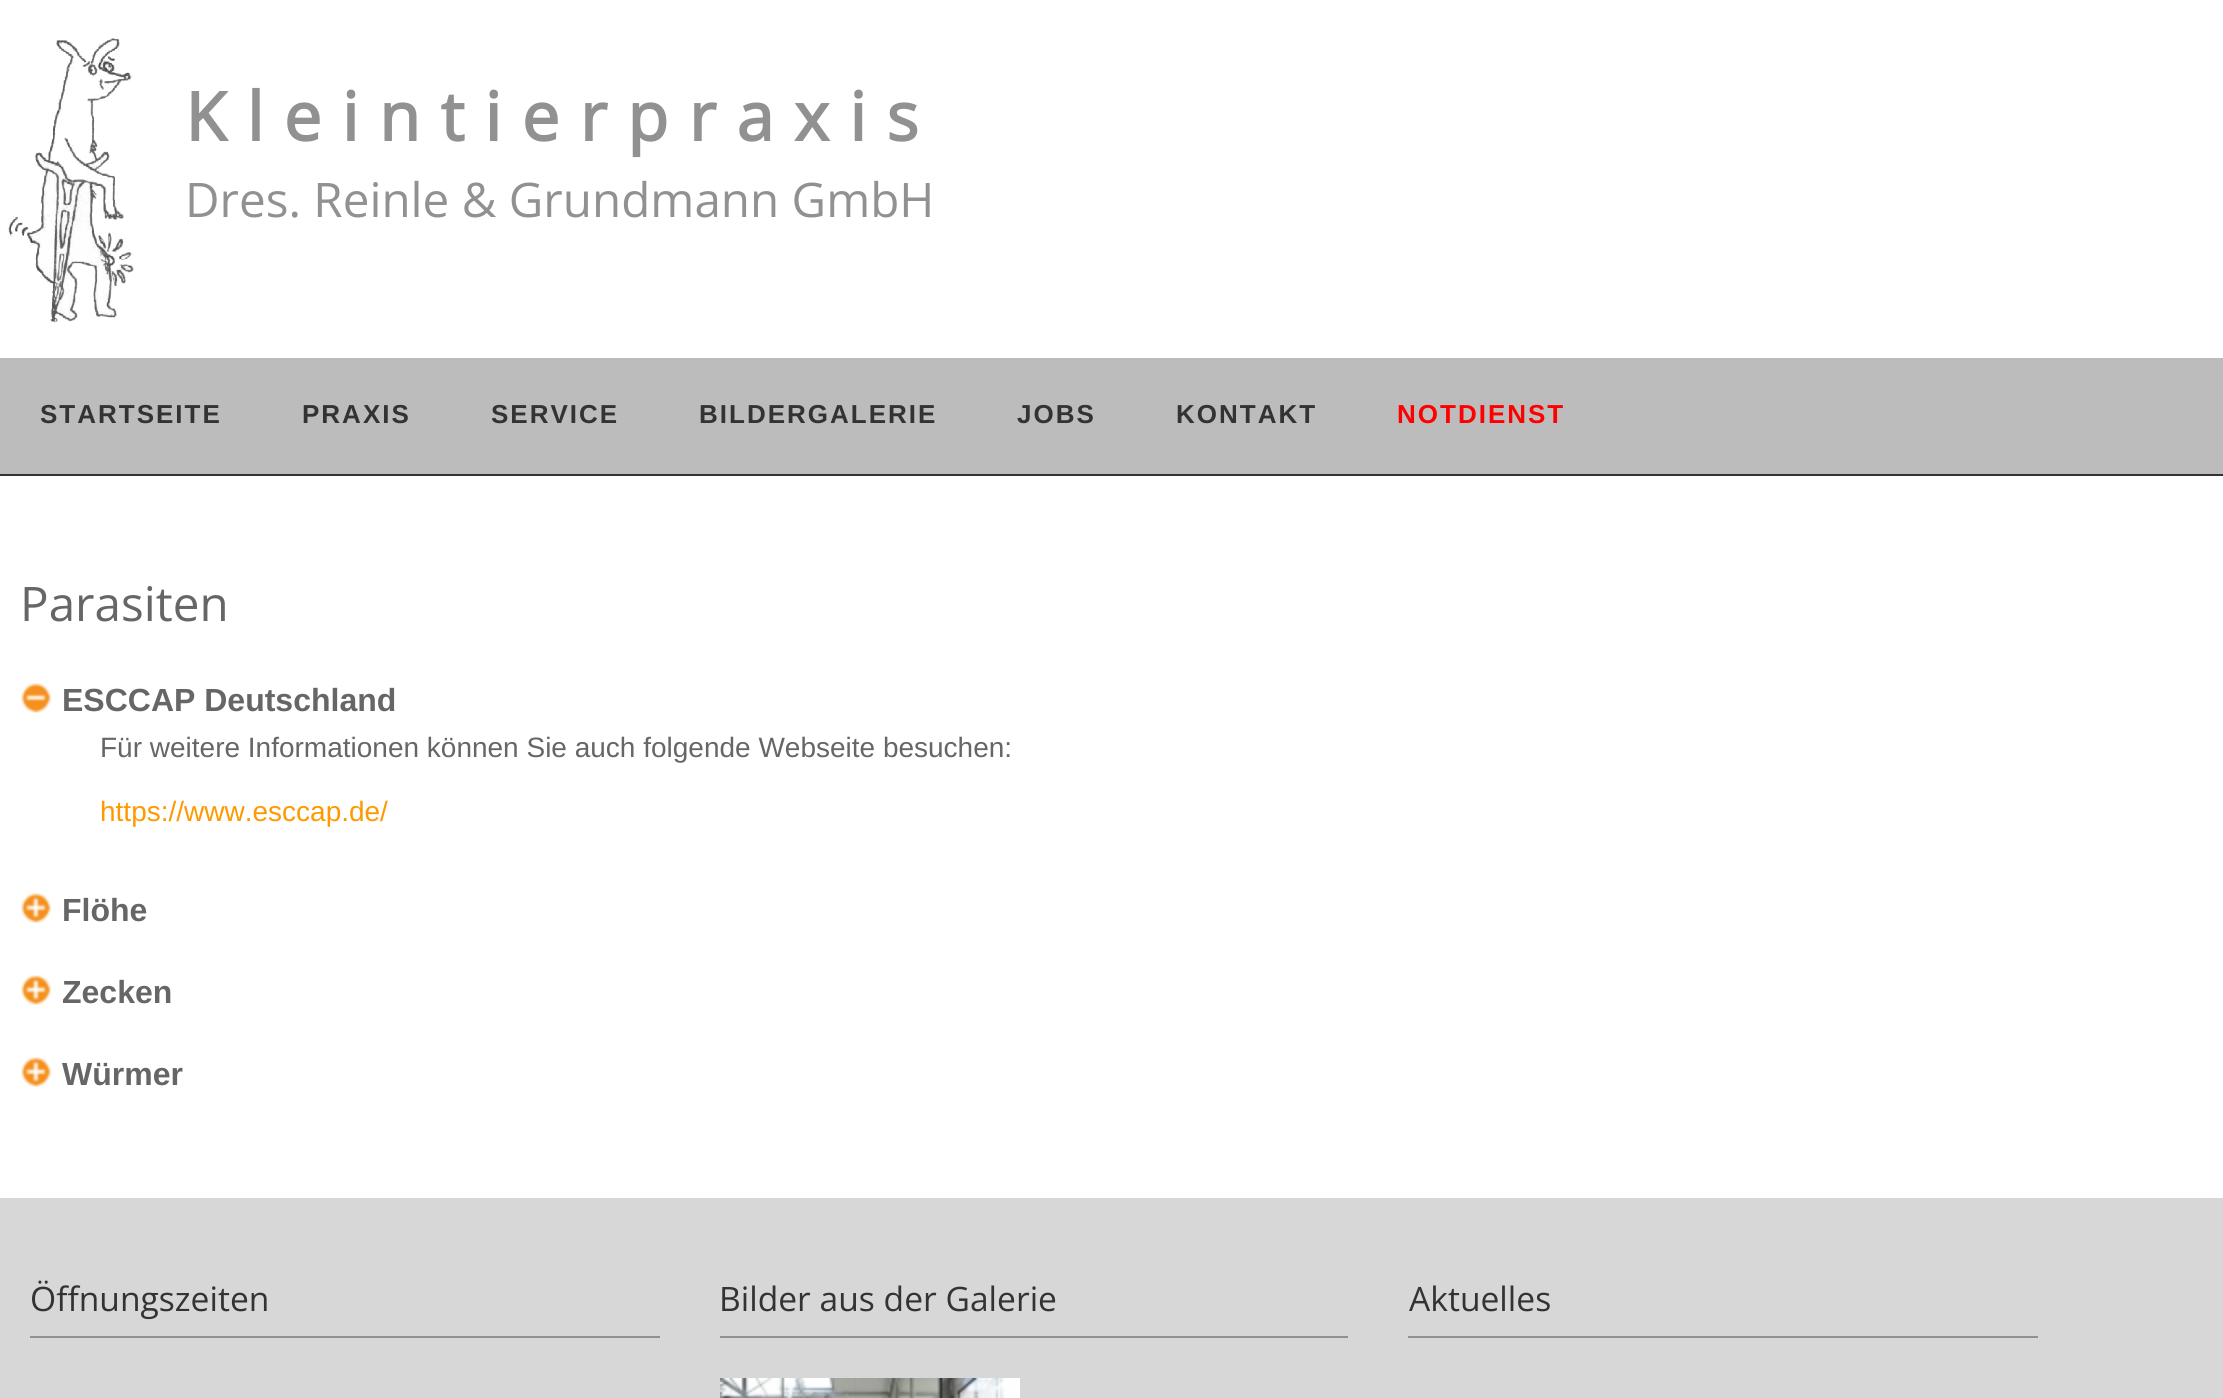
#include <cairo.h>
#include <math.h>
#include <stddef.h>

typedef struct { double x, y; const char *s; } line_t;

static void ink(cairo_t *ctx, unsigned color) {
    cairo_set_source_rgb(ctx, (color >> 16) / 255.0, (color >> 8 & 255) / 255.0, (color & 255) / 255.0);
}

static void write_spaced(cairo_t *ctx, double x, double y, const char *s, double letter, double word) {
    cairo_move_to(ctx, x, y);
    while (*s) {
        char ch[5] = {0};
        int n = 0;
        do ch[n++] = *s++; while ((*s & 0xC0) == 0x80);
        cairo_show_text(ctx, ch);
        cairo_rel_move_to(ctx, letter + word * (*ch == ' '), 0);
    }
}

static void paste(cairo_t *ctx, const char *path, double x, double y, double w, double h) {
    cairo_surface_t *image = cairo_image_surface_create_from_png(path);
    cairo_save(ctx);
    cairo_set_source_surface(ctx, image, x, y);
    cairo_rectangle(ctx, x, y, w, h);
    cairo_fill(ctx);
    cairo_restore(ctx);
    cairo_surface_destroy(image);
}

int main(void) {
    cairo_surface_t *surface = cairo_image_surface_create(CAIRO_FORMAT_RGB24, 2223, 1398);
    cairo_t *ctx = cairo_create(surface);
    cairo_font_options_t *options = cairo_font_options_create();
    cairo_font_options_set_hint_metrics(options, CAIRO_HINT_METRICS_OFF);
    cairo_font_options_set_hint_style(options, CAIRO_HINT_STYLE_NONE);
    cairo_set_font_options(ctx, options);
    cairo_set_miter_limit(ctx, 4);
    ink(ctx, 0xFFFFFF);
    cairo_paint(ctx);
    paste(ctx, "media/1.png", 7, 38, 127, 285);
    cairo_select_font_face(ctx, "Open Sans", CAIRO_FONT_SLANT_NORMAL, CAIRO_FONT_WEIGHT_BOLD);
    cairo_set_font_size(ctx, 67.25);
    ink(ctx, 0x919191);
    write_spaced(ctx, 185, 141, "Kleintierpraxis", 20.2, 0);
    cairo_select_font_face(ctx, "Open Sans", CAIRO_FONT_SLANT_NORMAL, CAIRO_FONT_WEIGHT_NORMAL);
    cairo_set_font_size(ctx, 47.6);
    cairo_move_to(ctx, 185, 217);
    cairo_show_text(ctx, "Dres. Reinle & Grundmann GmbH");
    ink(ctx, 0xBCBCBC);
    cairo_rectangle(ctx, 0, 358, 2223, 116);
    cairo_fill(ctx);
    ink(ctx, 0x333333);
    cairo_rectangle(ctx, 0, 474, 2223, 2);
    cairo_fill(ctx);
    cairo_select_font_face(ctx, "Liberation Sans", CAIRO_FONT_SLANT_NORMAL, CAIRO_FONT_WEIGHT_BOLD);
    cairo_set_font_size(ctx, 26);
    {
        static const line_t items[] = {
            {40, 423, "STARTSEITE"},
            {302, 423, "PRAXIS"},
            {491, 423, "SERVICE"},
            {699, 423, "BILDERGALERIE"},
            {1017, 423, "JOBS"},
            {1176, 423, "KONTAKT"},
        };
        for (size_t i = 0; i < sizeof items / sizeof *items; i++) {
            write_spaced(ctx, items[i].x, items[i].y, items[i].s, 2, 0);
        }
    }
    ink(ctx, 0xFF0000);
    write_spaced(ctx, 1397, 423, "NOTDIENST", 2, 0);
    cairo_select_font_face(ctx, "Open Sans", CAIRO_FONT_SLANT_NORMAL, CAIRO_FONT_WEIGHT_NORMAL);
    cairo_set_font_size(ctx, 47.6);
    ink(ctx, 0x666666);
    cairo_move_to(ctx, 20, 621);
    cairo_show_text(ctx, "Parasiten");
    paste(ctx, "media/2.png", 21, 683, 30, 30);
    cairo_select_font_face(ctx, "Liberation Sans", CAIRO_FONT_SLANT_NORMAL, CAIRO_FONT_WEIGHT_BOLD);
    cairo_set_font_size(ctx, 32);
    cairo_move_to(ctx, 62, 711);
    cairo_show_text(ctx, "ESCCAP Deutschland");
    cairo_select_font_face(ctx, "Liberation Sans", CAIRO_FONT_SLANT_NORMAL, CAIRO_FONT_WEIGHT_NORMAL);
    cairo_set_font_size(ctx, 28);
    cairo_move_to(ctx, 100, 757);
    cairo_show_text(ctx, "Für weitere Informationen können Sie auch folgende Webseite besuchen:");
    ink(ctx, 0xFF9900);
    cairo_move_to(ctx, 100, 821);
    cairo_show_text(ctx, "https://www.esccap.de/");
    paste(ctx, "media/3.png", 21, 893, 30, 30);
    cairo_select_font_face(ctx, "Liberation Sans", CAIRO_FONT_SLANT_NORMAL, CAIRO_FONT_WEIGHT_BOLD);
    cairo_set_font_size(ctx, 32);
    ink(ctx, 0x666666);
    cairo_move_to(ctx, 62, 921);
    cairo_show_text(ctx, "Flöhe");
    paste(ctx, "media/3.png", 21, 975, 30, 30);
    cairo_move_to(ctx, 62, 1003);
    cairo_show_text(ctx, "Zecken");
    paste(ctx, "media/3.png", 21, 1057, 30, 30);
    cairo_move_to(ctx, 62, 1085);
    cairo_show_text(ctx, "Würmer");
    ink(ctx, 0xD8D7D7);
    cairo_rectangle(ctx, 0, 1198, 2223, 200);
    cairo_fill(ctx);
    ink(ctx, 0x919191);
    cairo_rectangle(ctx, 30, 1336, 630, 2);
    cairo_fill(ctx);
    cairo_select_font_face(ctx, "Open Sans", CAIRO_FONT_SLANT_NORMAL, CAIRO_FONT_WEIGHT_NORMAL);
    cairo_set_font_size(ctx, 33.6);
    ink(ctx, 0x333333);
    cairo_move_to(ctx, 30, 1311);
    cairo_show_text(ctx, "Öffnungszeiten");
    ink(ctx, 0x919191);
    cairo_rectangle(ctx, 720, 1336, 628, 2);
    cairo_fill(ctx);
    ink(ctx, 0x333333);
    cairo_move_to(ctx, 719, 1311);
    cairo_show_text(ctx, "Bilder aus der Galerie");
    paste(ctx, "media/4.png", 720, 1378, 300, 20);
    ink(ctx, 0x919191);
    cairo_rectangle(ctx, 1408, 1336, 630, 2);
    cairo_fill(ctx);
    ink(ctx, 0x333333);
    cairo_move_to(ctx, 1409, 1311);
    cairo_show_text(ctx, "Aktuelles");
    cairo_surface_write_to_png(surface, "image.png");
    cairo_font_options_destroy(options);
    cairo_destroy(ctx);
    cairo_surface_destroy(surface);
    return 0;
}
